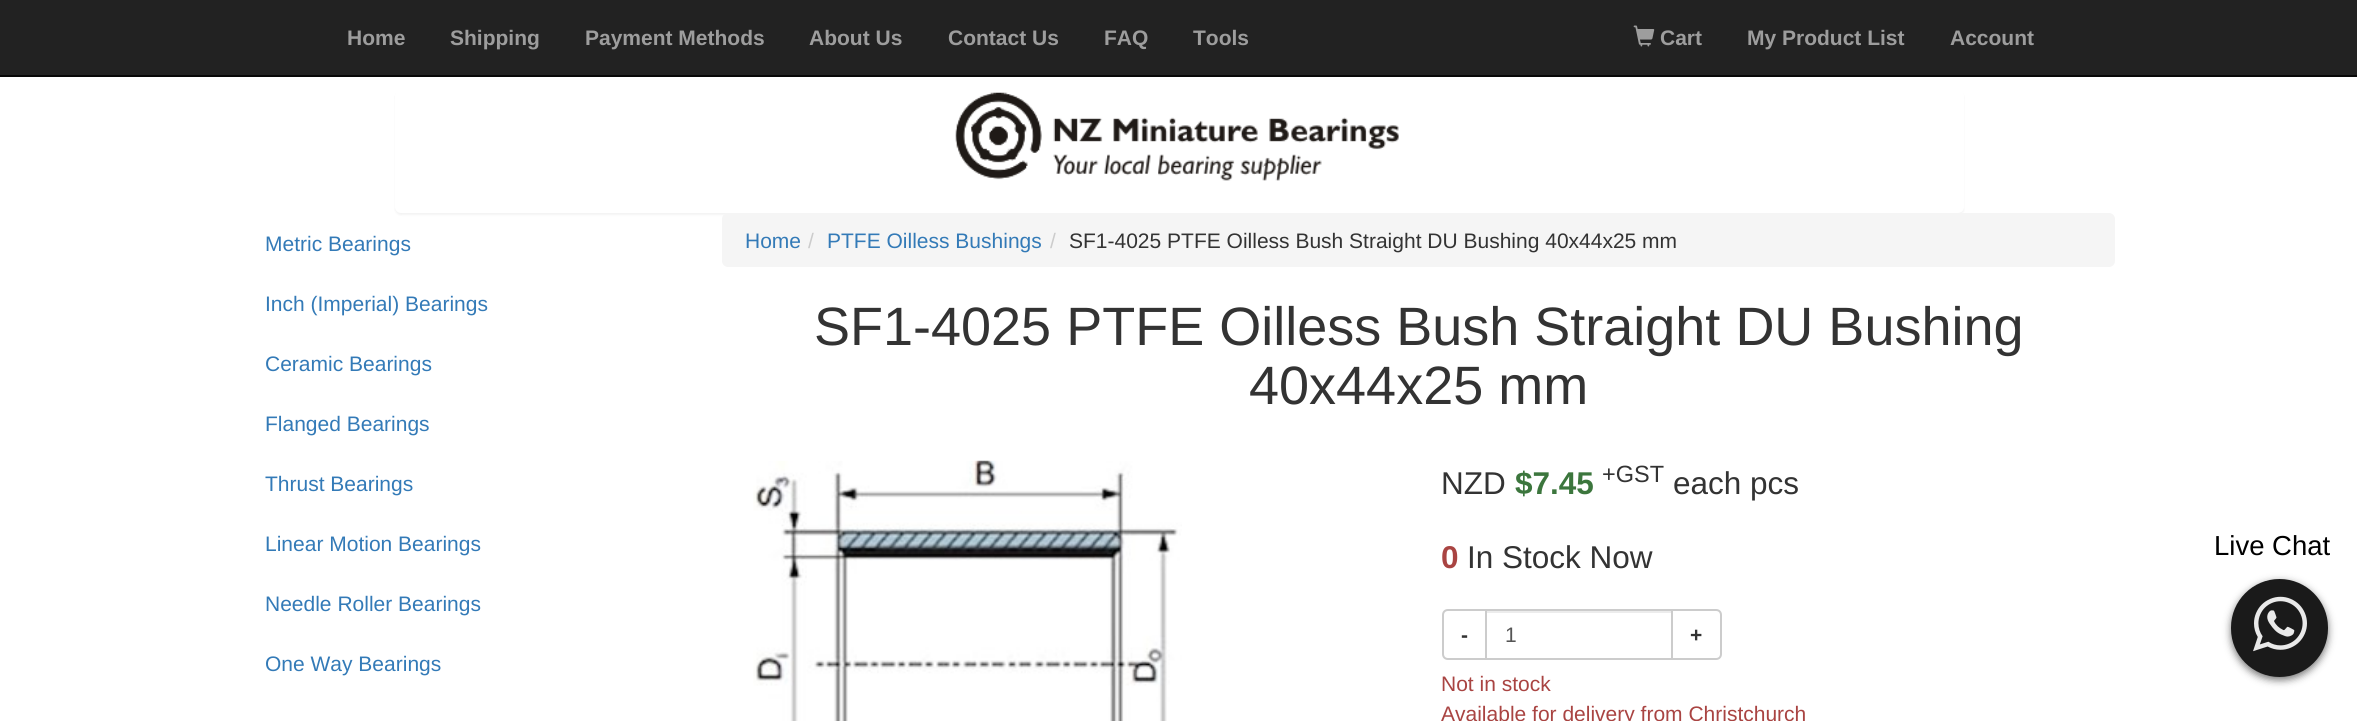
#include <cairo.h>
#include <math.h>
#include <stddef.h>

typedef struct { double x, y; const char *s; } line_t;

static void ink(cairo_t *ctx, unsigned color) {
    cairo_set_source_rgb(ctx, (color >> 16) / 255.0, (color >> 8 & 255) / 255.0, (color & 255) / 255.0);
}

static void round_path(cairo_t *ctx, double x, double y, double w, double h, double r) {
    cairo_new_sub_path(ctx);
    cairo_arc(ctx, x + w - r, y + h - r, r, 0, M_PI / 2);
    cairo_arc(ctx, x + r, y + h - r, r, M_PI / 2, M_PI);
    cairo_arc(ctx, x + r, y + r, r, M_PI, 1.5 * M_PI);
    cairo_arc(ctx, x + w - r, y + r, r, 1.5 * M_PI, 2 * M_PI);
    cairo_close_path(ctx);
}

static void blur_box(cairo_t *ctx, double x, double y, double w, double h, double r, double blur, double alpha) {
    cairo_push_group_with_content(ctx, CAIRO_CONTENT_ALPHA);
    cairo_set_operator(ctx, CAIRO_OPERATOR_SOURCE);
    for (int i = 15; i >= -15 && fmin(w, h) + blur * i / 3 > 0; i -= 2) {
        double e = blur * i / 6;
        cairo_set_source_rgba(ctx, 0, 0, 0, alpha * erfc((i - 1) / 8.5) / 2);
        round_path(ctx, x - e, y - e, w + 2 * e, h + 2 * e, fmax(0, fmin(r + e + blur * .6, fmin(w, h) / 2 + e)));
        cairo_fill(ctx);
    }
    cairo_pattern_t *soft = cairo_pop_group(ctx);
    cairo_mask(ctx, soft);
    cairo_pattern_destroy(soft);
}

static void paste(cairo_t *ctx, const char *path, double x, double y, double w, double h) {
    cairo_surface_t *image = cairo_image_surface_create_from_png(path);
    cairo_save(ctx);
    cairo_set_source_surface(ctx, image, x, y);
    cairo_rectangle(ctx, x, y, w, h);
    cairo_fill(ctx);
    cairo_restore(ctx);
    cairo_surface_destroy(image);
}

int main(void) {
    cairo_surface_t *surface = cairo_image_surface_create(CAIRO_FORMAT_RGB24, 2357, 721);
    cairo_t *ctx = cairo_create(surface);
    cairo_font_options_t *options = cairo_font_options_create();
    cairo_font_options_set_hint_metrics(options, CAIRO_HINT_METRICS_OFF);
    cairo_font_options_set_hint_style(options, CAIRO_HINT_STYLE_NONE);
    cairo_set_font_options(ctx, options);
    cairo_set_miter_limit(ctx, 4);
    ink(ctx, 0xFFFFFF);
    cairo_paint(ctx);
    ink(ctx, 0x222222);
    cairo_rectangle(ctx, 0, 0, 2357, 75);
    cairo_fill(ctx);
    ink(ctx, 0x080808);
    cairo_rectangle(ctx, 0, 75, 2357, 2);
    cairo_fill(ctx);
    cairo_select_font_face(ctx, "Liberation Sans", CAIRO_FONT_SLANT_NORMAL, CAIRO_FONT_WEIGHT_BOLD);
    cairo_set_font_size(ctx, 21);
    ink(ctx, 0x9D9D9D);
    {
        static const line_t items[] = {
            {347, 45, "Home"},
            {450, 45, "Shipping"},
            {585, 45, "Payment Methods"},
            {809, 45, "About Us"},
            {948, 45, "Contact Us"},
            {1104, 45, "FAQ"},
            {1193, 45, "Tools"},
        };
        for (size_t i = 0; i < sizeof items / sizeof *items; i++) {
            cairo_move_to(ctx, items[i].x, items[i].y);
            cairo_show_text(ctx, items[i].s);
        }
    }
    paste(ctx, "media/1.png", 1633, 25, 22, 22);
    {
        static const line_t items[] = {
            {1660, 45, "Cart"},
            {1747, 45, "My Product List"},
            {1950, 45, "Account"},
        };
        for (size_t i = 0; i < sizeof items / sizeof *items; i++) {
            cairo_move_to(ctx, items[i].x, items[i].y);
            cairo_show_text(ctx, items[i].s);
        }
    }
    ink(ctx, 0x000000);
    blur_box(ctx, 395, 92, 1569, 123, 6, 1, 0.05);
    ink(ctx, 0xFFFFFF);
    round_path(ctx, 395, 90, 1569, 123, 6);
    cairo_fill(ctx);
    paste(ctx, "media/2.png", 955, 92, 444, 89);
    cairo_select_font_face(ctx, "Liberation Sans", CAIRO_FONT_SLANT_NORMAL, CAIRO_FONT_WEIGHT_NORMAL);
    ink(ctx, 0x337AB7);
    {
        static const line_t items[] = {
            {265, 251, "Metric Bearings"},
            {265, 311, "Inch (Imperial) Bearings"},
            {265, 371, "Ceramic Bearings"},
            {265, 431, "Flanged Bearings"},
            {265, 491, "Thrust Bearings"},
            {265, 551, "Linear Motion Bearings"},
            {265, 611, "Needle Roller Bearings"},
            {265, 671, "One Way Bearings"},
        };
        for (size_t i = 0; i < sizeof items / sizeof *items; i++) {
            cairo_move_to(ctx, items[i].x, items[i].y);
            cairo_show_text(ctx, items[i].s);
        }
    }
    ink(ctx, 0xF5F5F5);
    round_path(ctx, 722, 213, 1393, 54, 6);
    cairo_fill(ctx);
    ink(ctx, 0x337AB7);
    cairo_move_to(ctx, 745, 248);
    cairo_show_text(ctx, "Home");
    ink(ctx, 0xCCCCCC);
    cairo_move_to(ctx, 808, 248);
    cairo_show_text(ctx, "/");
    ink(ctx, 0x337AB7);
    cairo_move_to(ctx, 827, 248);
    cairo_show_text(ctx, "PTFE Oilless Bushings");
    ink(ctx, 0xCCCCCC);
    cairo_move_to(ctx, 1050, 248);
    cairo_show_text(ctx, "/");
    ink(ctx, 0x333333);
    cairo_move_to(ctx, 1069, 248);
    cairo_show_text(ctx, "SF1-4025 PTFE Oilless Bush Straight DU Bushing 40x44x25 mm");
    cairo_set_font_size(ctx, 54);
    cairo_move_to(ctx, 814, 345);
    cairo_show_text(ctx, "SF1-4025 PTFE Oilless Bush Straight DU Bushing");
    cairo_move_to(ctx, 1249, 404);
    cairo_show_text(ctx, "40x44x25 mm");
    paste(ctx, "media/3.png", 753, 460, 429, 261);
    cairo_set_font_size(ctx, 31.5);
    cairo_move_to(ctx, 1441, 494);
    cairo_show_text(ctx, "NZD");
    cairo_select_font_face(ctx, "Liberation Sans", CAIRO_FONT_SLANT_NORMAL, CAIRO_FONT_WEIGHT_BOLD);
    ink(ctx, 0x3C763D);
    cairo_move_to(ctx, 1515, 494);
    cairo_show_text(ctx, "$7.45");
    cairo_select_font_face(ctx, "Liberation Sans", CAIRO_FONT_SLANT_NORMAL, CAIRO_FONT_WEIGHT_NORMAL);
    cairo_set_font_size(ctx, 23.5);
    ink(ctx, 0x333333);
    cairo_move_to(ctx, 1602, 482);
    cairo_show_text(ctx, "+GST");
    cairo_set_font_size(ctx, 31.5);
    cairo_move_to(ctx, 1673, 494);
    cairo_show_text(ctx, "each pcs");
    cairo_select_font_face(ctx, "Liberation Sans", CAIRO_FONT_SLANT_NORMAL, CAIRO_FONT_WEIGHT_BOLD);
    ink(ctx, 0xA94442);
    cairo_move_to(ctx, 1441, 568);
    cairo_show_text(ctx, "0");
    cairo_select_font_face(ctx, "Liberation Sans", CAIRO_FONT_SLANT_NORMAL, CAIRO_FONT_WEIGHT_NORMAL);
    ink(ctx, 0x333333);
    cairo_move_to(ctx, 1467, 568);
    cairo_show_text(ctx, "In Stock Now");
    cairo_new_path(ctx);
    cairo_move_to(ctx, 1448, 610);
    cairo_line_to(ctx, 1486, 610);
    cairo_line_to(ctx, 1486, 659);
    cairo_line_to(ctx, 1448, 659);
    cairo_curve_to(ctx, 1445, 659, 1443, 657, 1443, 654);
    cairo_line_to(ctx, 1443, 615);
    cairo_curve_to(ctx, 1443, 612, 1445, 610, 1448, 610);
    cairo_close_path(ctx);
    ink(ctx, 0xCCCCCC);
    cairo_stroke(ctx);
    cairo_select_font_face(ctx, "Liberation Sans", CAIRO_FONT_SLANT_NORMAL, CAIRO_FONT_WEIGHT_BOLD);
    cairo_set_font_size(ctx, 21);
    ink(ctx, 0x333333);
    cairo_move_to(ctx, 1461, 642);
    cairo_show_text(ctx, "-");
    ink(ctx, 0xECECEC);
    cairo_rectangle(ctx, 1487, 611, 184, 2);
    cairo_fill(ctx);
    cairo_rectangle(ctx, 1486, 610, 186, 49);
    ink(ctx, 0xCCCCCC);
    cairo_stroke(ctx);
    cairo_select_font_face(ctx, "Liberation Sans", CAIRO_FONT_SLANT_NORMAL, CAIRO_FONT_WEIGHT_NORMAL);
    ink(ctx, 0x555555);
    cairo_move_to(ctx, 1505, 642);
    cairo_show_text(ctx, "1");
    ink(ctx, 0xFFFFFF);
    cairo_new_path(ctx);
    cairo_move_to(ctx, 1672, 610);
    cairo_line_to(ctx, 1716, 610);
    cairo_curve_to(ctx, 1719, 610, 1721, 612, 1721, 615);
    cairo_line_to(ctx, 1721, 654);
    cairo_curve_to(ctx, 1721, 657, 1719, 659, 1716, 659);
    cairo_line_to(ctx, 1672, 659);
    cairo_close_path(ctx);
    cairo_fill_preserve(ctx);
    ink(ctx, 0xCCCCCC);
    cairo_stroke(ctx);
    cairo_select_font_face(ctx, "Liberation Sans", CAIRO_FONT_SLANT_NORMAL, CAIRO_FONT_WEIGHT_BOLD);
    ink(ctx, 0x333333);
    cairo_move_to(ctx, 1690, 642);
    cairo_show_text(ctx, "+");
    cairo_select_font_face(ctx, "Liberation Sans", CAIRO_FONT_SLANT_NORMAL, CAIRO_FONT_WEIGHT_NORMAL);
    ink(ctx, 0xA94442);
    cairo_move_to(ctx, 1441, 691);
    cairo_show_text(ctx, "Not in stock");
    cairo_move_to(ctx, 1441, 721);
    cairo_show_text(ctx, "Available for delivery from Christchurch");
    cairo_set_font_size(ctx, 27.5);
    ink(ctx, 0x000000);
    cairo_move_to(ctx, 2214, 555);
    cairo_show_text(ctx, "Live Chat");
    ink(ctx, 0x757575);
    blur_box(ctx, 2231, 582, 97, 98, 48.5, 4, 1);
    ink(ctx, 0x1A1A1A);
    round_path(ctx, 2231, 579, 97, 98, 48.5);
    cairo_fill(ctx);
    paste(ctx, "media/4.png", 2253, 596, 54, 56);
    cairo_surface_write_to_png(surface, "image.png");
    cairo_font_options_destroy(options);
    cairo_destroy(ctx);
    cairo_surface_destroy(surface);
    return 0;
}
